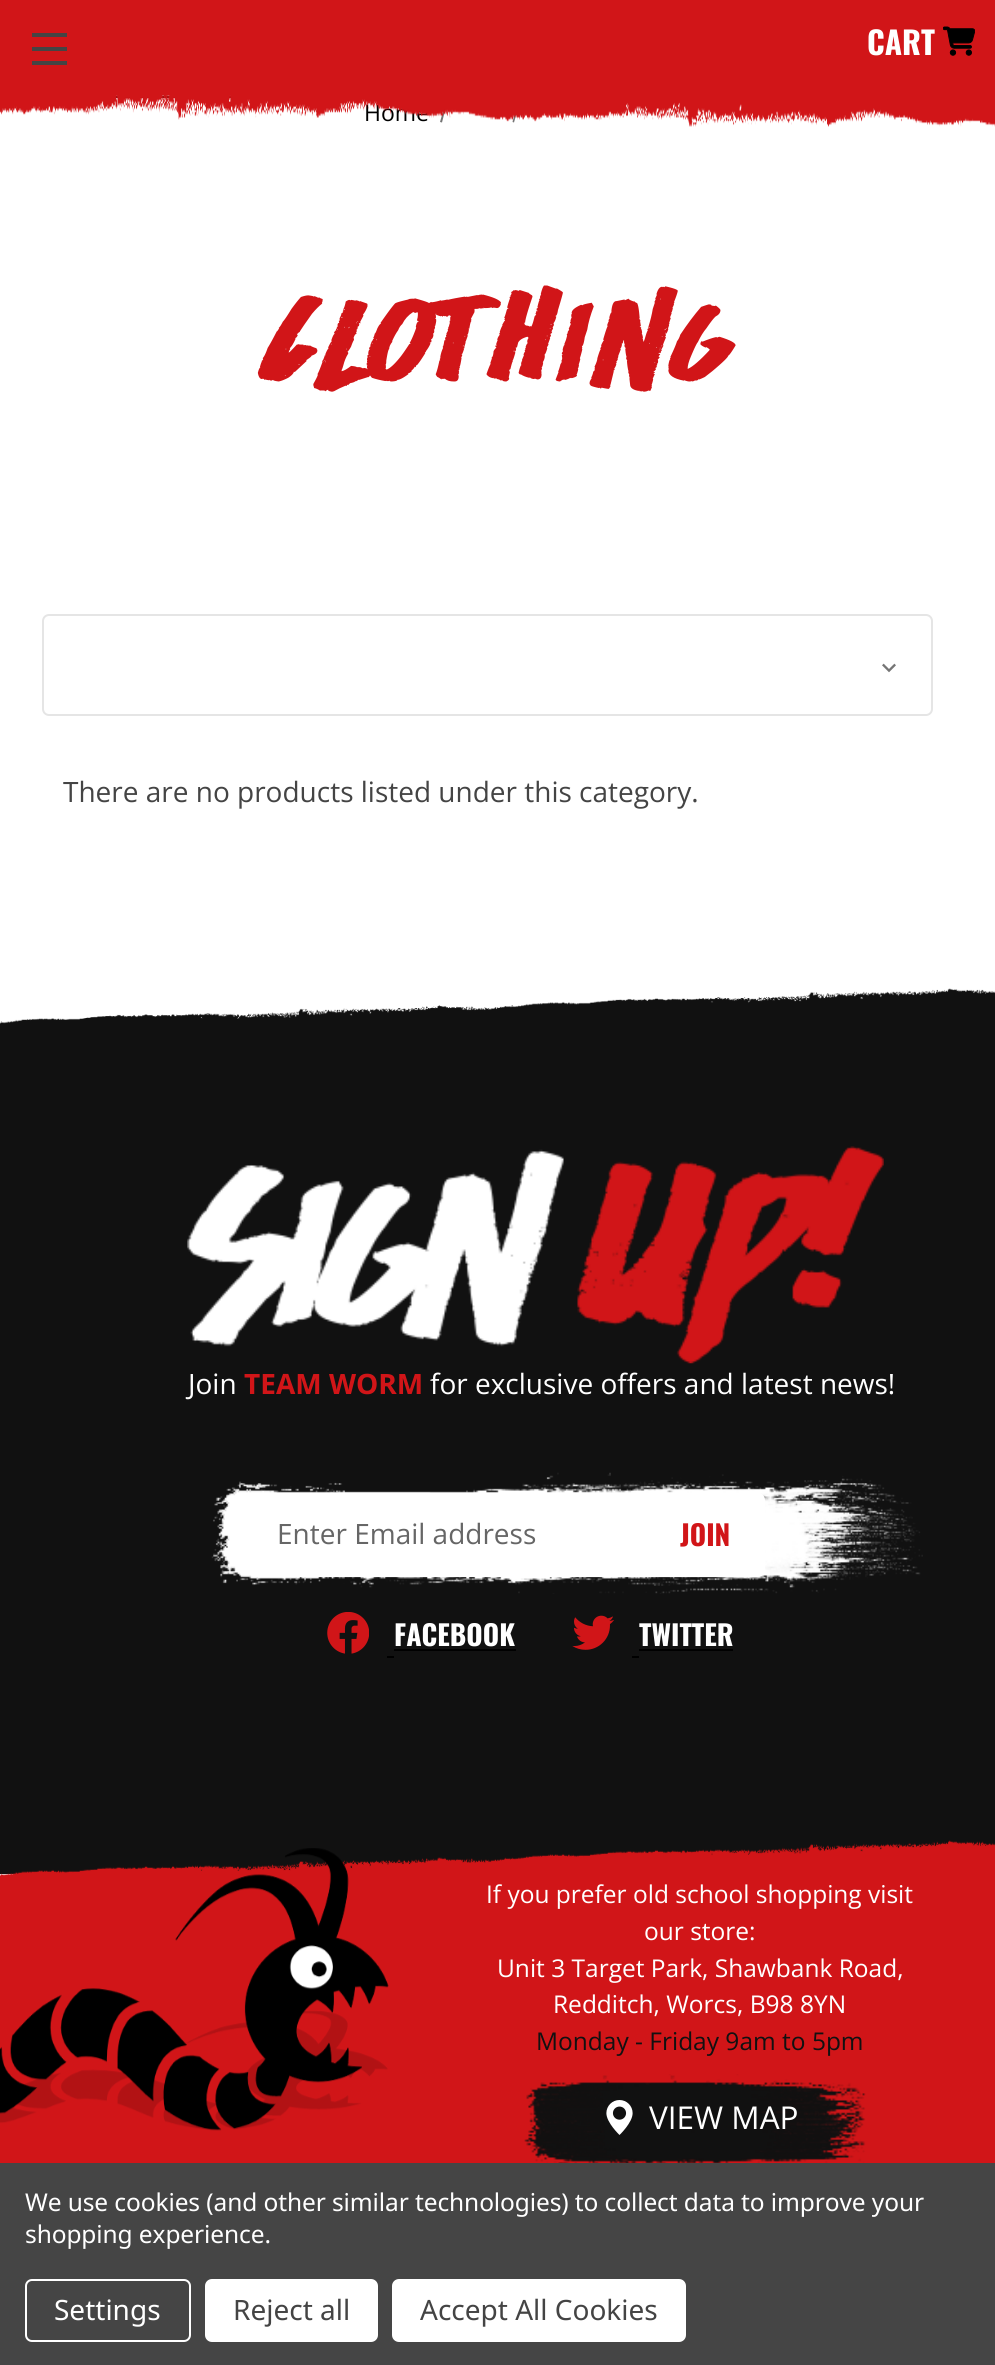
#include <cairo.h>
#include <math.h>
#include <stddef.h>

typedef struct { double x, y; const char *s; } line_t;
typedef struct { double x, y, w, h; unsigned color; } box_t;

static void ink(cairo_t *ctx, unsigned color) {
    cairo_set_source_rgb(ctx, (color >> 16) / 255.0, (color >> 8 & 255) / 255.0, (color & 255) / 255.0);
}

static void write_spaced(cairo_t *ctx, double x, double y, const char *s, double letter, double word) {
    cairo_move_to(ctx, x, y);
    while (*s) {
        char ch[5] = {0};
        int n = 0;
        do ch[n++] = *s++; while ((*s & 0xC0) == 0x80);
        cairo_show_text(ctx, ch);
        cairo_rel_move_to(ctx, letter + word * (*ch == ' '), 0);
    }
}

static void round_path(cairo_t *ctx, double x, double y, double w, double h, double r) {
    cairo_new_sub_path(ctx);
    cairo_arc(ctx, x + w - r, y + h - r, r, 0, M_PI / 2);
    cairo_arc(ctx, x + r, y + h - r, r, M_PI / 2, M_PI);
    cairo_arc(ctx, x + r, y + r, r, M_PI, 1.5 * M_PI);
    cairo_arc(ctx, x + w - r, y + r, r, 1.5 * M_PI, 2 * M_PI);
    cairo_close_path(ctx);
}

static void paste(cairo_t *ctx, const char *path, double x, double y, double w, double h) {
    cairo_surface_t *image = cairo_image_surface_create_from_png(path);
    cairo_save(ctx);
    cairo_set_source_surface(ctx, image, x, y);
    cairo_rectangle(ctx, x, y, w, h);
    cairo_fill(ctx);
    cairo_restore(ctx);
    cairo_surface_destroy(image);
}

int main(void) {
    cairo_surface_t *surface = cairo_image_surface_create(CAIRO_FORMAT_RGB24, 995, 2365);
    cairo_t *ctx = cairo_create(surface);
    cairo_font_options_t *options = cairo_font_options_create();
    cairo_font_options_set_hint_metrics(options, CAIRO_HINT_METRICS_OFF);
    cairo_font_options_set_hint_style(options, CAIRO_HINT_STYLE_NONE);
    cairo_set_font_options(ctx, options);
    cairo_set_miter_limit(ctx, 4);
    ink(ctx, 0xFFFFFF);
    cairo_paint(ctx);
    {
        static const box_t items[] = {
            {0, 0, 995, 95, 0xD11518},
            {116, 95, 115, 1, 0xE5E5E5},
            {32, 47, 35, 4, 0x444444},
            {32, 33, 35, 4, 0x444444},
            {32, 61, 35, 4, 0x444444},
            {116, 96, 115, 2, 0x901214},
        };
        for (size_t i = 0; i < sizeof items / sizeof *items; i++) {
            ink(ctx, items[i].color);
            cairo_rectangle(ctx, items[i].x, items[i].y, items[i].w, items[i].h);
            cairo_fill(ctx);
        }
    }
    cairo_select_font_face(ctx, "Oswald", CAIRO_FONT_SLANT_NORMAL, CAIRO_FONT_WEIGHT_BOLD);
    cairo_set_font_size(ctx, 31.5);
    ink(ctx, 0xFFFFFF);
    cairo_move_to(ctx, 867, 55);
    cairo_show_text(ctx, "CART");
    paste(ctx, "media/1.png", 943, 26, 32, 30);
    cairo_select_font_face(ctx, "Open Sans", CAIRO_FONT_SLANT_NORMAL, CAIRO_FONT_WEIGHT_NORMAL);
    cairo_set_font_size(ctx, 23);
    ink(ctx, 0x000000);
    cairo_move_to(ctx, 364, 121);
    cairo_show_text(ctx, "Home");
    ink(ctx, 0x757575);
    cairo_new_path(ctx);
    cairo_move_to(ctx, 445, 104.5);
    cairo_line_to(ctx, 446.5, 105);
    cairo_line_to(ctx, 442, 122.5);
    cairo_line_to(ctx, 440, 122);
    cairo_close_path(ctx);
    cairo_fill(ctx);
    cairo_new_path(ctx);
    cairo_move_to(ctx, 517, 104.5);
    cairo_line_to(ctx, 519, 105);
    cairo_line_to(ctx, 514, 122.5);
    cairo_line_to(ctx, 512.5, 122);
    cairo_close_path(ctx);
    cairo_fill(ctx);
    paste(ctx, "media/2.png", 0, 95, 995, 32);
    cairo_select_font_face(ctx, "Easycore", CAIRO_FONT_SLANT_NORMAL, CAIRO_FONT_WEIGHT_NORMAL);
    cairo_set_font_size(ctx, 210);
    ink(ctx, 0xD11518);
    write_spaced(ctx, 264, 402, "Clothing", 12.25, 0);
    round_path(ctx, 43, 615, 889, 100, 6);
    ink(ctx, 0xE5E5E5);
    cairo_stroke(ctx);
    paste(ctx, "media/3.png", 882, 663, 14, 10);
    cairo_select_font_face(ctx, "Open Sans", CAIRO_FONT_SLANT_NORMAL, CAIRO_FONT_WEIGHT_NORMAL);
    cairo_set_font_size(ctx, 28);
    ink(ctx, 0x444444);
    cairo_move_to(ctx, 63, 802);
    cairo_show_text(ctx, "There are no products listed under this category.");
    ink(ctx, 0x111111);
    cairo_rectangle(ctx, 0, 1024, 995, 850);
    cairo_fill(ctx);
    paste(ctx, "media/4.png", 0, 988, 995, 36);
    paste(ctx, "media/5.png", 187, 1146, 697, 218);
    ink(ctx, 0xFFFFFF);
    cairo_move_to(ctx, 188, 1394);
    cairo_show_text(ctx, "Join");
    cairo_select_font_face(ctx, "Open Sans", CAIRO_FONT_SLANT_NORMAL, CAIRO_FONT_WEIGHT_BOLD);
    ink(ctx, 0xD11518);
    cairo_move_to(ctx, 244, 1394);
    cairo_show_text(ctx, "TEAM WORM");
    cairo_select_font_face(ctx, "Open Sans", CAIRO_FONT_SLANT_NORMAL, CAIRO_FONT_WEIGHT_NORMAL);
    ink(ctx, 0xFFFFFF);
    cairo_move_to(ctx, 430, 1394);
    cairo_show_text(ctx, "for exclusive offers and latest news!");
    paste(ctx, "media/6.png", 211, 1472, 712, 122);
    round_path(ctx, 249, 1493, 516, 84, 7);
    cairo_fill(ctx);
    ink(ctx, 0x666666);
    cairo_move_to(ctx, 277, 1544);
    cairo_show_text(ctx, "Enter Email address");
    cairo_select_font_face(ctx, "Oswald", CAIRO_FONT_SLANT_NORMAL, CAIRO_FONT_WEIGHT_BOLD);
    ink(ctx, 0xD11518);
    cairo_move_to(ctx, 680, 1546);
    cairo_show_text(ctx, "JOIN");
    paste(ctx, "media/7.png", 327, 1612, 42, 42);
    ink(ctx, 0xFFFFFF);
    cairo_move_to(ctx, 394, 1646);
    cairo_show_text(ctx, "FACEBOOK");
    ink(ctx, 0x000000);
    cairo_rectangle(ctx, 394, 1649, 122, 2);
    cairo_fill(ctx);
    cairo_rectangle(ctx, 387, 1656, 7, 2);
    cairo_fill(ctx);
    paste(ctx, "media/8.png", 572, 1615, 42, 35);
    ink(ctx, 0xFFFFFF);
    cairo_move_to(ctx, 639, 1646);
    cairo_show_text(ctx, "TWITTER");
    {
        static const box_t items[] = {
            {639, 1649, 94, 2, 0x000000},
            {632, 1656, 7, 2, 0x000000},
            {0, 1876, 995, 287, 0xD11518},
            {0, 1874, 15, 2, 0xE5E5E5},
        };
        for (size_t i = 0; i < sizeof items / sizeof *items; i++) {
            ink(ctx, items[i].color);
            cairo_rectangle(ctx, items[i].x, items[i].y, items[i].w, items[i].h);
            cairo_fill(ctx);
        }
    }
    paste(ctx, "media/9.png", 0, 1840, 995, 36);
    paste(ctx, "media/10.png", 0, 1848, 389, 283);
    cairo_select_font_face(ctx, "Open Sans", CAIRO_FONT_SLANT_NORMAL, CAIRO_FONT_WEIGHT_NORMAL);
    cairo_set_font_size(ctx, 24.5);
    ink(ctx, 0xFFFFFF);
    {
        static const line_t items[] = {
            {486, 1903, "If you prefer old school shopping visit"},
            {644, 1940, "our store:"},
            {497, 1977, "Unit 3 Target Park, Shawbank Road,"},
            {553, 2013, "Redditch, Worcs, B98 8YN"},
        };
        for (size_t i = 0; i < sizeof items / sizeof *items; i++) {
            cairo_move_to(ctx, items[i].x, items[i].y);
            cairo_show_text(ctx, items[i].s);
        }
    }
    ink(ctx, 0x111111);
    cairo_move_to(ctx, 536, 2050);
    cairo_show_text(ctx, "Monday - Friday 9am to 5pm");
    paste(ctx, "media/11.png", 524, 2074, 342, 89);
    paste(ctx, "media/12.png", 606, 2100, 27, 35);
    cairo_set_font_size(ctx, 31.5);
    ink(ctx, 0xFFFFFF);
    cairo_move_to(ctx, 649, 2129);
    cairo_show_text(ctx, "VIEW MAP");
    ink(ctx, 0x454545);
    cairo_rectangle(ctx, 0, 2163, 995, 202);
    cairo_fill(ctx);
    cairo_select_font_face(ctx, "Noto Sans", CAIRO_FONT_SLANT_NORMAL, CAIRO_FONT_WEIGHT_NORMAL);
    cairo_set_font_size(ctx, 24.5);
    ink(ctx, 0xFFFFFF);
    write_spaced(ctx, 25, 2211, "We use cookies (and other similar technologies) to collect data to improve your", -0.1, 0);
    write_spaced(ctx, 25, 2243, "shopping experience.", -0.1, 0);
    round_path(ctx, 26, 2280, 164, 61, 6);
    cairo_stroke(ctx);
    cairo_set_font_size(ctx, 28);
    cairo_move_to(ctx, 54, 2320);
    cairo_show_text(ctx, "Settings");
    round_path(ctx, 205, 2279, 173, 63, 7);
    cairo_fill(ctx);
    ink(ctx, 0x444444);
    cairo_move_to(ctx, 233, 2320);
    cairo_show_text(ctx, "Reject all");
    ink(ctx, 0xFFFFFF);
    round_path(ctx, 392, 2279, 294, 63, 7);
    cairo_fill(ctx);
    ink(ctx, 0x444444);
    cairo_move_to(ctx, 420, 2320);
    cairo_show_text(ctx, "Accept All Cookies");
    cairo_surface_write_to_png(surface, "image.png");
    cairo_font_options_destroy(options);
    cairo_destroy(ctx);
    cairo_surface_destroy(surface);
    return 0;
}
